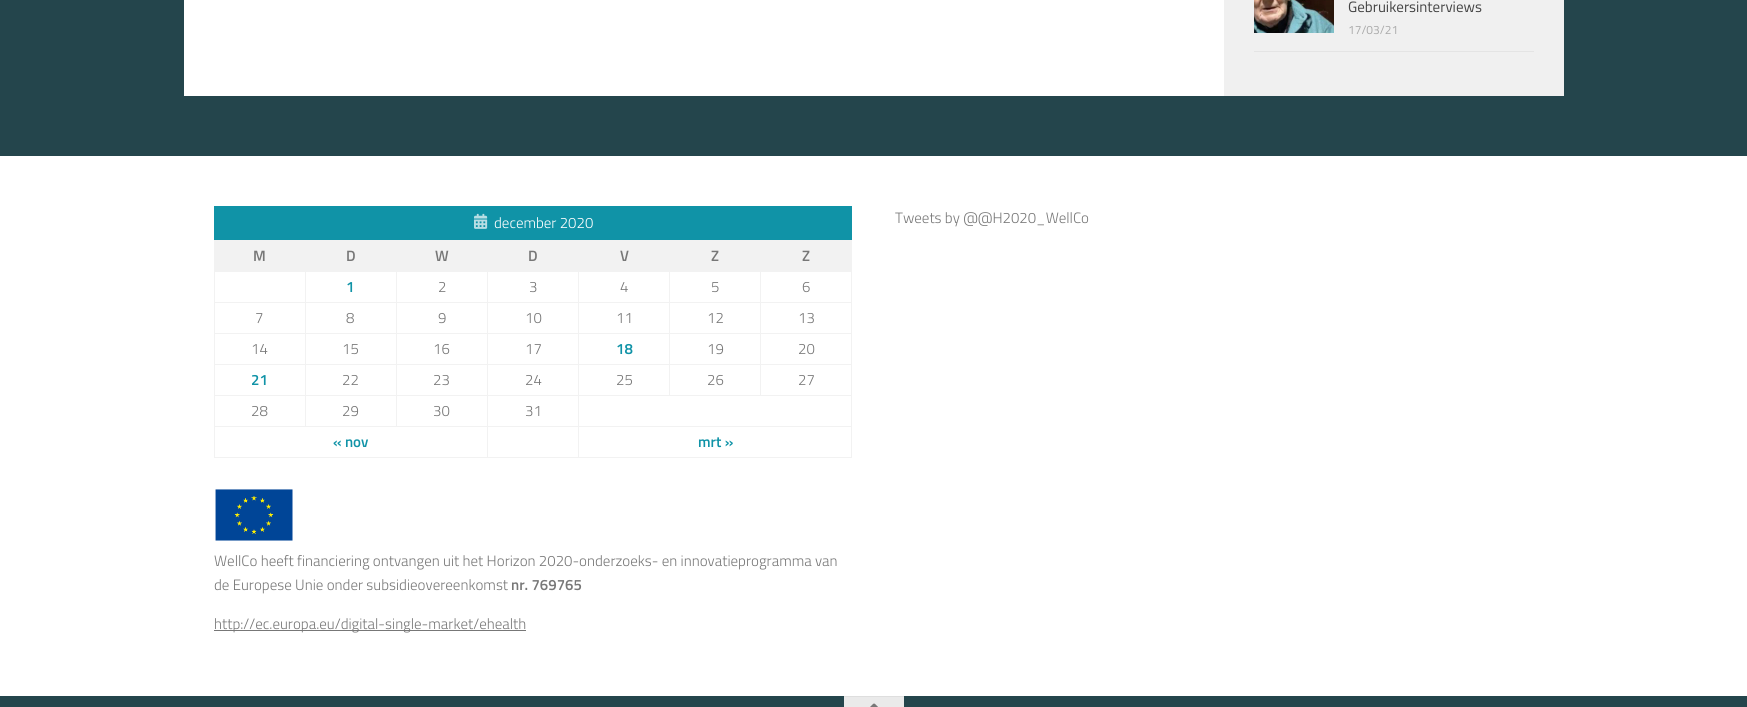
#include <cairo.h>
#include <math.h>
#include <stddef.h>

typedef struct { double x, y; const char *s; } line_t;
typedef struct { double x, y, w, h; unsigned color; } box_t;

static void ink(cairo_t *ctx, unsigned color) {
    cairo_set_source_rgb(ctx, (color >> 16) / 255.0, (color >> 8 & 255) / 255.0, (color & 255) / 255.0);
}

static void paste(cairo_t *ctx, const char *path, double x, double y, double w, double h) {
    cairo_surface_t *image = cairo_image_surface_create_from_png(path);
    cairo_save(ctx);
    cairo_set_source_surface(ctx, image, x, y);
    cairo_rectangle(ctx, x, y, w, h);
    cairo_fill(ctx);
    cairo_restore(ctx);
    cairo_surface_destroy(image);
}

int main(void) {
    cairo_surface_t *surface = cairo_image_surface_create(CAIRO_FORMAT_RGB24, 1747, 707);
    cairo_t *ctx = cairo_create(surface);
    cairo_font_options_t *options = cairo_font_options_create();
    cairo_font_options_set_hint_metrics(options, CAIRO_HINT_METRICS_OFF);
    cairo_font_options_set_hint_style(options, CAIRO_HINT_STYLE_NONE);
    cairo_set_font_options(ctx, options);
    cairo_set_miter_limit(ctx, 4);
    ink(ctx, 0x24454C);
    cairo_paint(ctx);
    {
        static const box_t items[] = {
            {184, 0, 1040, 96, 0xFFFFFF},
            {1224, 0, 340, 96, 0xF0F0F0},
            {1254, 51, 280, 1, 0xE4E4E4},
        };
        for (size_t i = 0; i < sizeof items / sizeof *items; i++) {
            ink(ctx, items[i].color);
            cairo_rectangle(ctx, items[i].x, items[i].y, items[i].w, items[i].h);
            cairo_fill(ctx);
        }
    }
    paste(ctx, "media/1.png", 1254, 0, 80, 33);
    cairo_select_font_face(ctx, "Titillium", CAIRO_FONT_SLANT_NORMAL, CAIRO_FONT_WEIGHT_NORMAL);
    cairo_set_font_size(ctx, 15);
    ink(ctx, 0x444444);
    cairo_move_to(ctx, 1348, 12);
    cairo_show_text(ctx, "Gebruikersinterviews");
    cairo_set_font_size(ctx, 12);
    ink(ctx, 0xAAAAAA);
    cairo_move_to(ctx, 1348, 34);
    cairo_show_text(ctx, "17/03/21");
    ink(ctx, 0xFFFFFF);
    cairo_rectangle(ctx, 0, 156, 1747, 540);
    cairo_fill(ctx);
    ink(ctx, 0x1093A7);
    cairo_rectangle(ctx, 214, 206, 638, 34);
    cairo_fill(ctx);
    paste(ctx, "media/2.png", 474, 213, 14, 16);
    cairo_select_font_face(ctx, "Titillium Light", CAIRO_FONT_SLANT_NORMAL, CAIRO_FONT_WEIGHT_NORMAL);
    cairo_set_font_size(ctx, 15);
    ink(ctx, 0xFFFFFF);
    cairo_move_to(ctx, 494, 228);
    cairo_show_text(ctx, "december 2020");
    ink(ctx, 0xF2F2F2);
    cairo_rectangle(ctx, 214, 241, 638, 30);
    cairo_fill(ctx);
    cairo_select_font_face(ctx, "Titillium SemiBold", CAIRO_FONT_SLANT_NORMAL, CAIRO_FONT_WEIGHT_NORMAL);
    ink(ctx, 0x777777);
    {
        static const line_t items[] = {
            {253, 261, "M"},
            {346, 261, "D"},
            {435, 261, "W"},
            {528, 261, "D"},
            {620, 261, "V"},
            {711, 261, "Z"},
        };
        for (size_t i = 0; i < sizeof items / sizeof *items; i++) {
            cairo_move_to(ctx, items[i].x, items[i].y);
            cairo_show_text(ctx, items[i].s);
        }
    }
    ink(ctx, 0xF2F2F2);
    cairo_rectangle(ctx, 214, 240, 638, 1);
    cairo_fill(ctx);
    ink(ctx, 0x777777);
    cairo_move_to(ctx, 802, 261);
    cairo_show_text(ctx, "Z");
    {
        static const box_t items[] = {
            {760, 271, 92, 1, 0xF2F2F2},
            {760, 302, 92, 1, 0xF2F2F2},
            {760, 333, 92, 1, 0xF2F2F2},
            {760, 364, 92, 1, 0xF2F2F2},
            {578, 395, 274, 1, 0xF2F2F2},
            {760, 364, 1, 32, 0xF2F2F2},
            {669, 364, 92, 1, 0xF2F2F2},
            {760, 333, 1, 32, 0xF2F2F2},
            {669, 333, 92, 1, 0xF2F2F2},
            {760, 302, 1, 32, 0xF2F2F2},
            {669, 302, 92, 1, 0xF2F2F2},
            {760, 271, 1, 32, 0xF2F2F2},
            {669, 271, 92, 1, 0xF2F2F2},
            {669, 364, 1, 32, 0xF2F2F2},
            {578, 364, 92, 1, 0xF2F2F2},
            {669, 333, 1, 32, 0xF2F2F2},
            {578, 333, 92, 1, 0xF2F2F2},
            {669, 302, 1, 32, 0xF2F2F2},
            {578, 302, 92, 1, 0xF2F2F2},
            {669, 271, 1, 32, 0xF2F2F2},
            {578, 271, 92, 1, 0xF2F2F2},
            {851, 395, 1, 32, 0xF2F2F2},
            {578, 426, 274, 1, 0xF2F2F2},
            {578, 395, 1, 32, 0xF2F2F2},
            {487, 395, 92, 1, 0xF2F2F2},
            {578, 364, 1, 32, 0xF2F2F2},
            {487, 364, 92, 1, 0xF2F2F2},
            {578, 333, 1, 32, 0xF2F2F2},
            {487, 333, 92, 1, 0xF2F2F2},
            {578, 302, 1, 32, 0xF2F2F2},
            {487, 302, 92, 1, 0xF2F2F2},
            {578, 271, 1, 32, 0xF2F2F2},
            {487, 271, 92, 1, 0xF2F2F2},
            {487, 426, 92, 1, 0xF2F2F2},
            {487, 395, 1, 32, 0xF2F2F2},
            {396, 395, 92, 1, 0xF2F2F2},
            {487, 364, 1, 32, 0xF2F2F2},
            {396, 364, 92, 1, 0xF2F2F2},
            {487, 333, 1, 32, 0xF2F2F2},
            {396, 333, 92, 1, 0xF2F2F2},
            {487, 302, 1, 32, 0xF2F2F2},
            {396, 302, 92, 1, 0xF2F2F2},
            {487, 271, 1, 32, 0xF2F2F2},
            {396, 271, 92, 1, 0xF2F2F2},
            {396, 426, 92, 1, 0xF2F2F2},
            {396, 395, 1, 32, 0xF2F2F2},
            {305, 395, 92, 1, 0xF2F2F2},
            {396, 364, 1, 32, 0xF2F2F2},
            {305, 364, 92, 1, 0xF2F2F2},
            {396, 333, 1, 32, 0xF2F2F2},
            {305, 333, 92, 1, 0xF2F2F2},
            {396, 302, 1, 32, 0xF2F2F2},
            {305, 302, 92, 1, 0xF2F2F2},
            {396, 271, 1, 32, 0xF2F2F2},
            {305, 271, 92, 1, 0xF2F2F2},
            {305, 426, 92, 1, 0xF2F2F2},
            {305, 395, 1, 32, 0xF2F2F2},
            {214, 395, 92, 1, 0xF2F2F2},
            {305, 364, 1, 32, 0xF2F2F2},
            {214, 364, 92, 1, 0xF2F2F2},
            {305, 333, 1, 32, 0xF2F2F2},
            {214, 333, 92, 1, 0xF2F2F2},
            {305, 302, 1, 32, 0xF2F2F2},
            {214, 302, 92, 1, 0xF2F2F2},
            {305, 271, 1, 32, 0xF2F2F2},
            {214, 271, 92, 1, 0xF2F2F2},
            {214, 426, 92, 1, 0xF2F2F2},
            {214, 395, 1, 32, 0xF2F2F2},
            {214, 364, 1, 32, 0xF2F2F2},
            {214, 333, 1, 32, 0xF2F2F2},
            {214, 302, 1, 32, 0xF2F2F2},
            {214, 271, 1, 32, 0xF2F2F2},
        };
        for (size_t i = 0; i < sizeof items / sizeof *items; i++) {
            ink(ctx, items[i].color);
            cairo_rectangle(ctx, items[i].x, items[i].y, items[i].w, items[i].h);
            cairo_fill(ctx);
        }
    }
    ink(ctx, 0x1093A7);
    cairo_move_to(ctx, 346, 292);
    cairo_show_text(ctx, "1");
    cairo_select_font_face(ctx, "Titillium Light", CAIRO_FONT_SLANT_NORMAL, CAIRO_FONT_WEIGHT_NORMAL);
    ink(ctx, 0x777777);
    {
        static const line_t items[] = {
            {438, 292, "2"},
            {529, 292, "3"},
            {620, 292, "4"},
            {711, 292, "5"},
        };
        for (size_t i = 0; i < sizeof items / sizeof *items; i++) {
            cairo_move_to(ctx, items[i].x, items[i].y);
            cairo_show_text(ctx, items[i].s);
        }
    }
    {
        static const box_t items[] = {
            {851, 364, 1, 32, 0xF2F2F2},
            {851, 333, 1, 32, 0xF2F2F2},
            {851, 302, 1, 32, 0xF2F2F2},
            {851, 271, 1, 32, 0xF2F2F2},
        };
        for (size_t i = 0; i < sizeof items / sizeof *items; i++) {
            ink(ctx, items[i].color);
            cairo_rectangle(ctx, items[i].x, items[i].y, items[i].w, items[i].h);
            cairo_fill(ctx);
        }
    }
    ink(ctx, 0x777777);
    {
        static const line_t items[] = {
            {802, 292, "6"},
            {255, 323, "7"},
            {346, 323, "8"},
            {438, 323, "9"},
            {525, 323, "10"},
            {616, 323, "11"},
            {707, 323, "12"},
            {798, 323, "13"},
            {251, 354, "14"},
            {342, 354, "15"},
            {433, 354, "16"},
            {525, 354, "17"},
        };
        for (size_t i = 0; i < sizeof items / sizeof *items; i++) {
            cairo_move_to(ctx, items[i].x, items[i].y);
            cairo_show_text(ctx, items[i].s);
        }
    }
    cairo_select_font_face(ctx, "Titillium SemiBold", CAIRO_FONT_SLANT_NORMAL, CAIRO_FONT_WEIGHT_NORMAL);
    ink(ctx, 0x1093A7);
    cairo_move_to(ctx, 616, 354);
    cairo_show_text(ctx, "18");
    cairo_select_font_face(ctx, "Titillium Light", CAIRO_FONT_SLANT_NORMAL, CAIRO_FONT_WEIGHT_NORMAL);
    ink(ctx, 0x777777);
    cairo_move_to(ctx, 707, 354);
    cairo_show_text(ctx, "19");
    cairo_move_to(ctx, 798, 354);
    cairo_show_text(ctx, "20");
    cairo_select_font_face(ctx, "Titillium SemiBold", CAIRO_FONT_SLANT_NORMAL, CAIRO_FONT_WEIGHT_NORMAL);
    ink(ctx, 0x1093A7);
    cairo_move_to(ctx, 251, 385);
    cairo_show_text(ctx, "21");
    cairo_select_font_face(ctx, "Titillium Light", CAIRO_FONT_SLANT_NORMAL, CAIRO_FONT_WEIGHT_NORMAL);
    ink(ctx, 0x777777);
    {
        static const line_t items[] = {
            {342, 385, "22"},
            {433, 385, "23"},
            {525, 385, "24"},
            {616, 385, "25"},
            {707, 385, "26"},
            {798, 385, "27"},
            {251, 416, "28"},
            {342, 416, "29"},
            {433, 416, "30"},
            {525, 416, "31"},
        };
        for (size_t i = 0; i < sizeof items / sizeof *items; i++) {
            cairo_move_to(ctx, items[i].x, items[i].y);
            cairo_show_text(ctx, items[i].s);
        }
    }
    {
        static const box_t items[] = {
            {851, 426, 1, 32, 0xF2F2F2},
            {578, 457, 274, 1, 0xF2F2F2},
            {578, 426, 1, 32, 0xF2F2F2},
            {487, 457, 92, 1, 0xF2F2F2},
            {487, 426, 1, 32, 0xF2F2F2},
            {214, 457, 274, 1, 0xF2F2F2},
            {214, 426, 1, 32, 0xF2F2F2},
        };
        for (size_t i = 0; i < sizeof items / sizeof *items; i++) {
            ink(ctx, items[i].color);
            cairo_rectangle(ctx, items[i].x, items[i].y, items[i].w, items[i].h);
            cairo_fill(ctx);
        }
    }
    cairo_select_font_face(ctx, "Titillium SemiBold", CAIRO_FONT_SLANT_NORMAL, CAIRO_FONT_WEIGHT_NORMAL);
    ink(ctx, 0x1093A7);
    cairo_move_to(ctx, 333, 447);
    cairo_show_text(ctx, "« nov");
    cairo_move_to(ctx, 698, 447);
    cairo_show_text(ctx, "mrt »");
    paste(ctx, "media/3.png", 215, 489, 78, 52);
    cairo_select_font_face(ctx, "Titillium Light", CAIRO_FONT_SLANT_NORMAL, CAIRO_FONT_WEIGHT_NORMAL);
    ink(ctx, 0x777777);
    cairo_move_to(ctx, 214, 566);
    cairo_show_text(ctx, "WellCo heeft financiering ontvangen uit het Horizon 2020-onderzoeks- en innovatieprogramma van");
    cairo_move_to(ctx, 214, 590);
    cairo_show_text(ctx, "de Europese Unie onder subsidieovereenkomst");
    cairo_select_font_face(ctx, "Titillium SemiBold", CAIRO_FONT_SLANT_NORMAL, CAIRO_FONT_WEIGHT_NORMAL);
    cairo_move_to(ctx, 511, 590);
    cairo_show_text(ctx, "nr. 769765");
    cairo_rectangle(ctx, 214, 630, 312, 1);
    cairo_fill(ctx);
    cairo_select_font_face(ctx, "Titillium Light", CAIRO_FONT_SLANT_NORMAL, CAIRO_FONT_WEIGHT_NORMAL);
    cairo_move_to(ctx, 214, 629);
    cairo_show_text(ctx, "http://ec.europa.eu/digital-single-market/ehealth");
    cairo_move_to(ctx, 895, 223);
    cairo_show_text(ctx, "Tweets by @@H2020_WellCo");
    ink(ctx, 0xEAEAEA);
    cairo_rectangle(ctx, 844, 697, 60, 10);
    cairo_fill(ctx);
    ink(ctx, 0xDEDEDE);
    cairo_rectangle(ctx, 844, 696, 60, 1);
    cairo_fill(ctx);
    paste(ctx, "media/4.png", 870, 703, 8, 4);
    cairo_surface_write_to_png(surface, "image.png");
    cairo_font_options_destroy(options);
    cairo_destroy(ctx);
    cairo_surface_destroy(surface);
    return 0;
}
